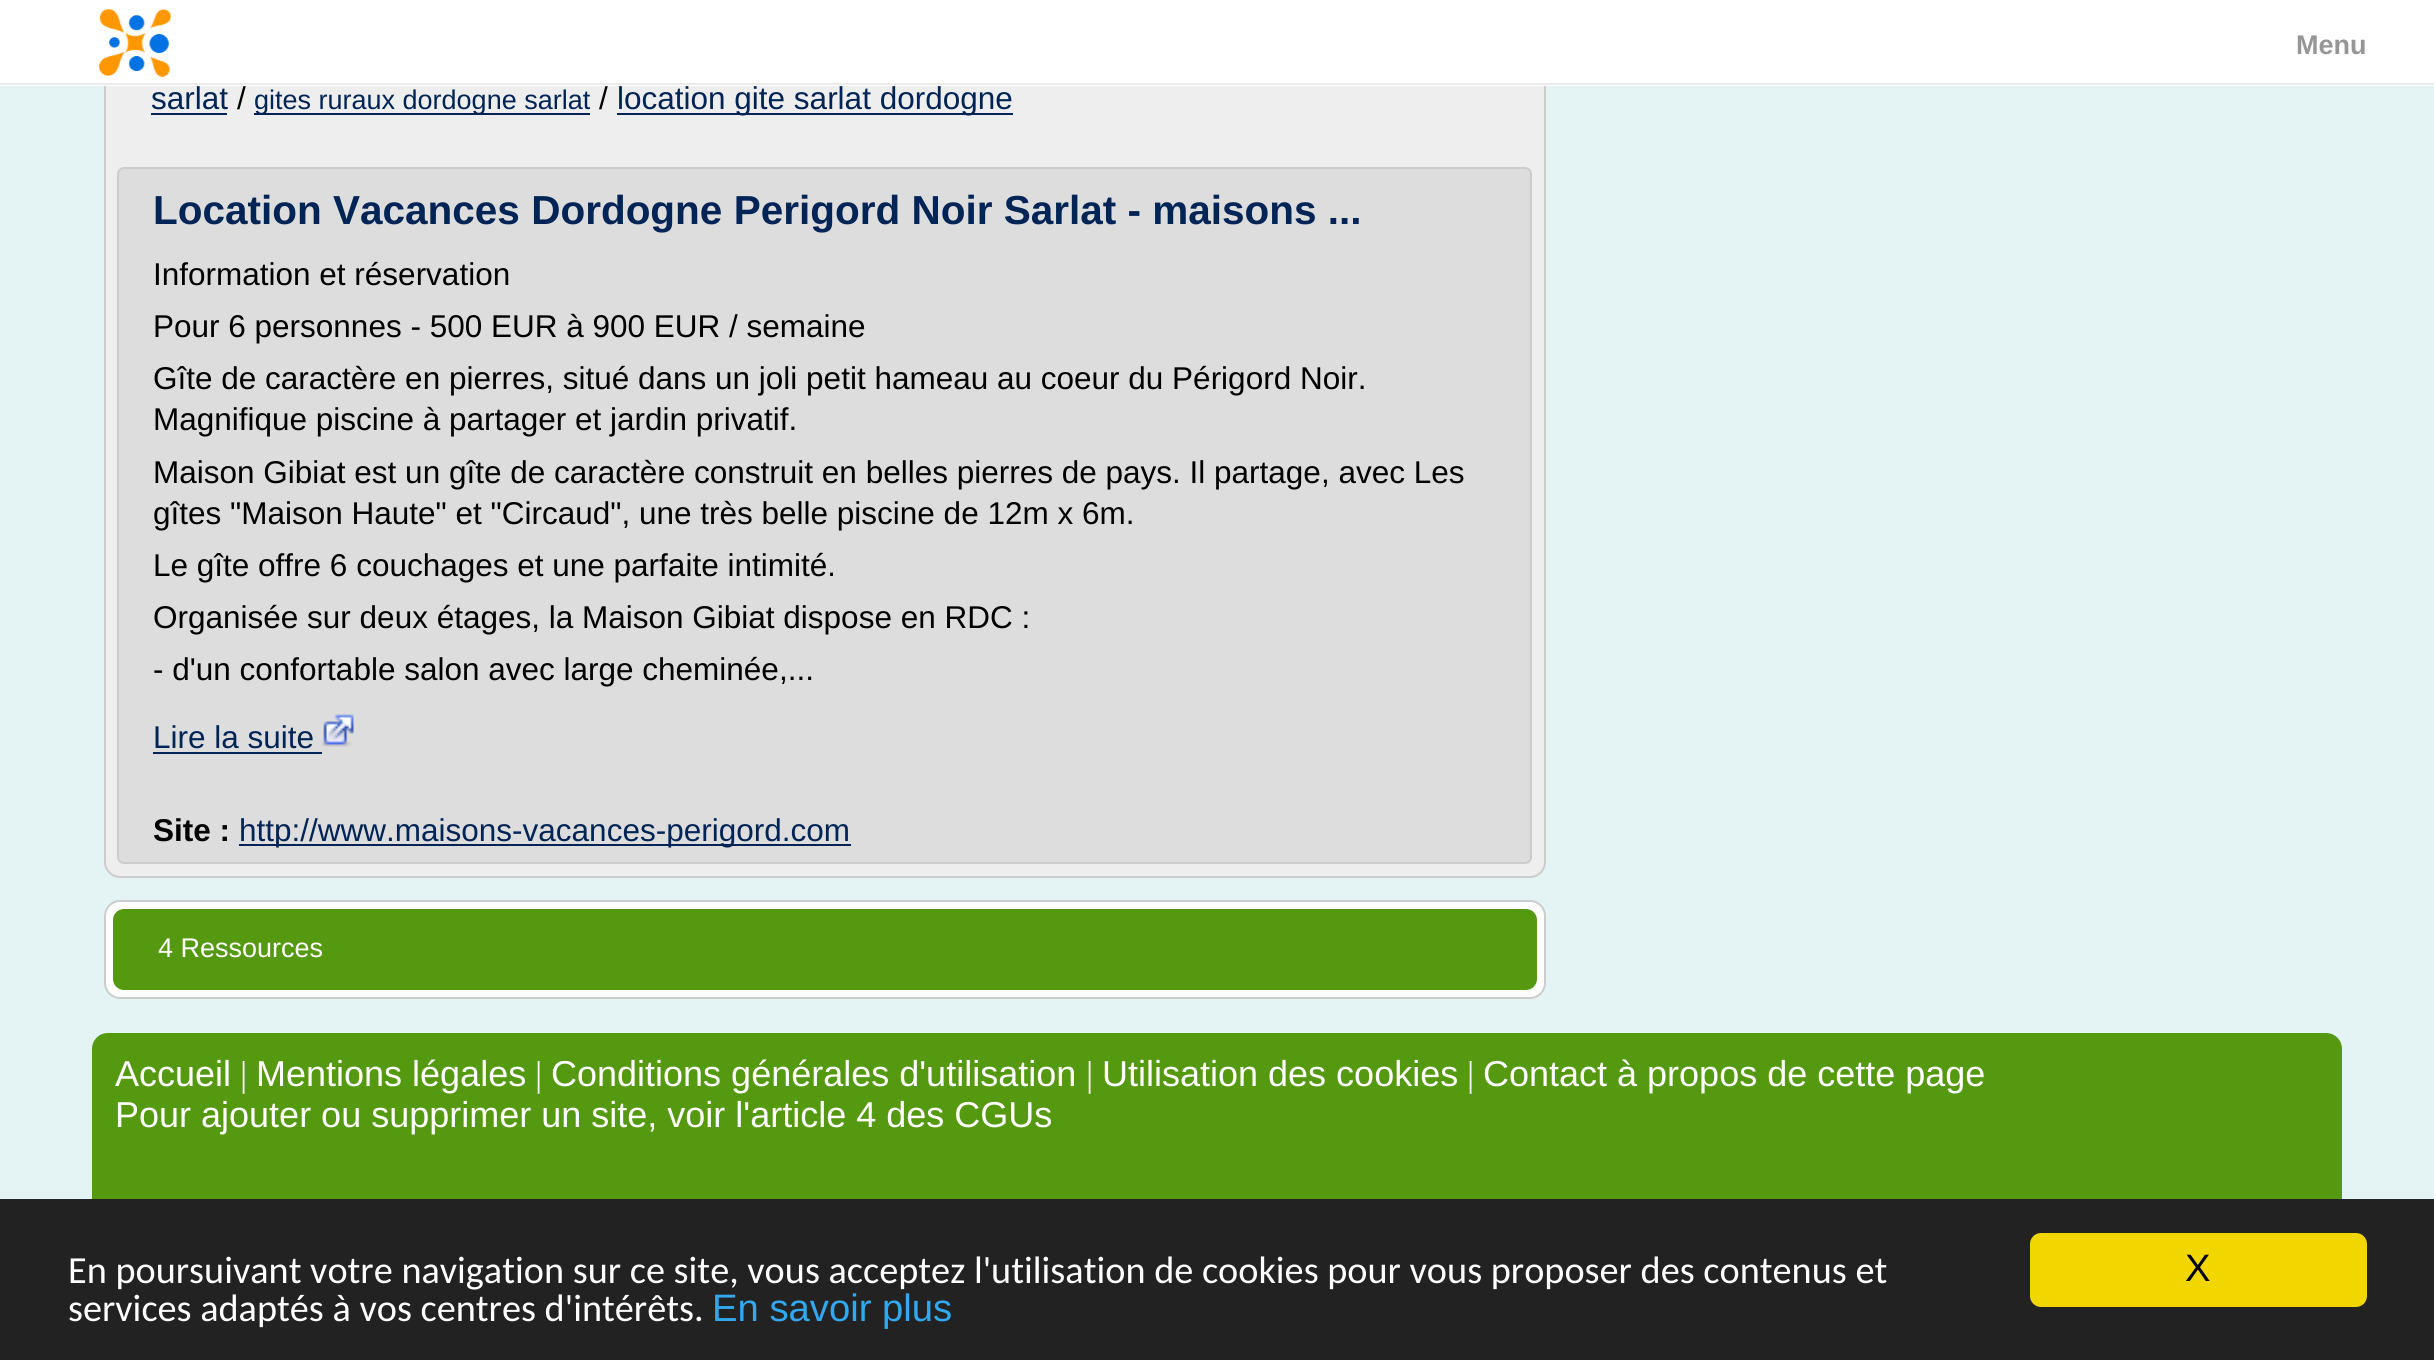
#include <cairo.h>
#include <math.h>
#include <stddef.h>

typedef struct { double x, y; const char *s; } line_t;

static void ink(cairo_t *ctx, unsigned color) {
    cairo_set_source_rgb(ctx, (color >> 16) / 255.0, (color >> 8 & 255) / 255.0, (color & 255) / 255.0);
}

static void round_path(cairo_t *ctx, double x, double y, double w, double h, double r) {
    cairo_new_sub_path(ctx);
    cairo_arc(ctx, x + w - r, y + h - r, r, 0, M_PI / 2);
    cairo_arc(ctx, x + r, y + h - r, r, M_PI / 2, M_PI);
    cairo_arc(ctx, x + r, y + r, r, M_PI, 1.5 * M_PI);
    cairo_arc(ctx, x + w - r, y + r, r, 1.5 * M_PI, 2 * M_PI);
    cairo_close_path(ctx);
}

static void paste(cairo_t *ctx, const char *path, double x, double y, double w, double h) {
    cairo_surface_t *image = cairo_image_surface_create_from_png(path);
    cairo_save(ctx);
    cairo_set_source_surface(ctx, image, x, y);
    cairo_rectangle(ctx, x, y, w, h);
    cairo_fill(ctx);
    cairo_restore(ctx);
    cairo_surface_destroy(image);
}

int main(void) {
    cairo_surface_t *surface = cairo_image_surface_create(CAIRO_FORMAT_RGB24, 2434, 1360);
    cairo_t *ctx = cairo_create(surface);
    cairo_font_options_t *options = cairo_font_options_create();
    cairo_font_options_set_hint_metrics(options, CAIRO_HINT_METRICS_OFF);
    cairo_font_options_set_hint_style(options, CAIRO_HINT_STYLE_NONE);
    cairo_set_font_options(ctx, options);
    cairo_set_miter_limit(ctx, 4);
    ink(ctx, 0xE4F4F4);
    cairo_paint(ctx);
    ink(ctx, 0xEEEEEE);
    round_path(ctx, 105, -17, 1440, 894, 15);
    cairo_fill_preserve(ctx);
    ink(ctx, 0xCCCCCC);
    cairo_stroke(ctx);
    ink(ctx, 0xFFFFFF);
    cairo_rectangle(ctx, 0, 0, 2434, 86);
    cairo_fill(ctx);
    ink(ctx, 0xEBEBEB);
    cairo_rectangle(ctx, 0, 83, 2434, 2);
    cairo_fill(ctx);
    paste(ctx, "media/1.png", 99, 9, 72, 68);
    cairo_select_font_face(ctx, "Liberation Sans", CAIRO_FONT_SLANT_NORMAL, CAIRO_FONT_WEIGHT_BOLD);
    cairo_set_font_size(ctx, 27);
    ink(ctx, 0x969696);
    cairo_move_to(ctx, 2296, 54);
    cairo_show_text(ctx, "Menu");
    cairo_select_font_face(ctx, "Liberation Sans", CAIRO_FONT_SLANT_NORMAL, CAIRO_FONT_WEIGHT_NORMAL);
    cairo_set_font_size(ctx, 31.5);
    ink(ctx, 0x002455);
    cairo_move_to(ctx, 151, 109);
    cairo_show_text(ctx, "sarlat");
    cairo_rectangle(ctx, 151, 113, 76, 2);
    cairo_fill(ctx);
    ink(ctx, 0x000000);
    cairo_move_to(ctx, 237, 109);
    cairo_show_text(ctx, "/");
    ink(ctx, 0x002455);
    cairo_rectangle(ctx, 254, 113, 336, 2);
    cairo_fill(ctx);
    cairo_set_font_size(ctx, 27);
    cairo_move_to(ctx, 254, 109);
    cairo_show_text(ctx, "gites ruraux dordogne sarlat");
    cairo_set_font_size(ctx, 31.5);
    ink(ctx, 0x000000);
    cairo_move_to(ctx, 599, 109);
    cairo_show_text(ctx, "/");
    ink(ctx, 0x002455);
    cairo_rectangle(ctx, 617, 113, 396, 2);
    cairo_fill(ctx);
    cairo_move_to(ctx, 617, 109);
    cairo_show_text(ctx, "location gite sarlat dordogne");
    ink(ctx, 0xDDDDDD);
    round_path(ctx, 118, 168, 1413, 695, 6);
    cairo_fill_preserve(ctx);
    ink(ctx, 0xCCCCCC);
    cairo_stroke(ctx);
    cairo_select_font_face(ctx, "Liberation Sans", CAIRO_FONT_SLANT_NORMAL, CAIRO_FONT_WEIGHT_BOLD);
    cairo_set_font_size(ctx, 40.5);
    ink(ctx, 0x002455);
    cairo_move_to(ctx, 153, 224);
    cairo_show_text(ctx, "Location Vacances Dordogne Perigord Noir Sarlat - maisons ...");
    cairo_select_font_face(ctx, "Liberation Sans", CAIRO_FONT_SLANT_NORMAL, CAIRO_FONT_WEIGHT_NORMAL);
    cairo_set_font_size(ctx, 31.5);
    ink(ctx, 0x000000);
    {
        static const line_t items[] = {
            {153, 285, "Information et réservation"},
            {153, 337, "Pour 6 personnes - 500 EUR à 900 EUR / semaine"},
            {153, 389, "Gîte de caractère en pierres, situé dans un joli petit hameau au coeur du Périgord Noir."},
            {153, 430, "Magnifique piscine à partager et jardin privatif."},
            {153, 483, "Maison Gibiat est un gîte de caractère construit en belles pierres de pays. Il partage, avec Les"},
            {153, 524, "gîtes \"Maison Haute\" et \"Circaud\", une très belle piscine de 12m x 6m."},
            {153, 576, "Le gîte offre 6 couchages et une parfaite intimité."},
            {153, 628, "Organisée sur deux étages, la Maison Gibiat dispose en RDC :"},
            {153, 680, "- d'un confortable salon avec large cheminée,..."},
        };
        for (size_t i = 0; i < sizeof items / sizeof *items; i++) {
            cairo_move_to(ctx, items[i].x, items[i].y);
            cairo_show_text(ctx, items[i].s);
        }
    }
    ink(ctx, 0x002455);
    cairo_move_to(ctx, 153, 748);
    cairo_show_text(ctx, "Lire la suite");
    cairo_rectangle(ctx, 153, 752, 169, 2);
    cairo_fill(ctx);
    paste(ctx, "media/2.png", 322, 714, 32, 33);
    cairo_select_font_face(ctx, "Liberation Sans", CAIRO_FONT_SLANT_NORMAL, CAIRO_FONT_WEIGHT_BOLD);
    ink(ctx, 0x000000);
    cairo_move_to(ctx, 153, 841);
    cairo_show_text(ctx, "Site :");
    ink(ctx, 0x002455);
    cairo_rectangle(ctx, 239, 844, 612, 2);
    cairo_fill(ctx);
    cairo_select_font_face(ctx, "Liberation Sans", CAIRO_FONT_SLANT_NORMAL, CAIRO_FONT_WEIGHT_NORMAL);
    cairo_move_to(ctx, 239, 841);
    cairo_show_text(ctx, "http://www.maisons-vacances-perigord.com");
    ink(ctx, 0xFFFFFF);
    round_path(ctx, 105, 901, 1440, 97, 15);
    cairo_fill_preserve(ctx);
    ink(ctx, 0xCCCCCC);
    cairo_stroke(ctx);
    ink(ctx, 0x559911);
    round_path(ctx, 113, 909, 1424, 81, 11);
    cairo_fill(ctx);
    cairo_set_font_size(ctx, 27);
    ink(ctx, 0xFFFFFF);
    cairo_move_to(ctx, 158, 957);
    cairo_show_text(ctx, "4 Ressources");
    ink(ctx, 0x559911);
    cairo_new_path(ctx);
    cairo_move_to(ctx, 108, 1033);
    cairo_line_to(ctx, 2326, 1033);
    cairo_curve_to(ctx, 2335, 1033, 2342, 1040, 2342, 1049);
    cairo_line_to(ctx, 2342, 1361);
    cairo_line_to(ctx, 92, 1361);
    cairo_line_to(ctx, 92, 1049);
    cairo_curve_to(ctx, 92, 1040, 99, 1033, 108, 1033);
    cairo_close_path(ctx);
    cairo_fill(ctx);
    cairo_set_font_size(ctx, 36);
    ink(ctx, 0xFFFFFF);
    cairo_move_to(ctx, 115, 1086);
    cairo_show_text(ctx, "Accueil");
    cairo_select_font_face(ctx, "Liberation Serif", CAIRO_FONT_SLANT_NORMAL, CAIRO_FONT_WEIGHT_NORMAL);
    cairo_move_to(ctx, 240, 1086);
    cairo_show_text(ctx, "|");
    cairo_select_font_face(ctx, "Liberation Sans", CAIRO_FONT_SLANT_NORMAL, CAIRO_FONT_WEIGHT_NORMAL);
    cairo_move_to(ctx, 256, 1086);
    cairo_show_text(ctx, "Mentions légales");
    cairo_select_font_face(ctx, "Liberation Serif", CAIRO_FONT_SLANT_NORMAL, CAIRO_FONT_WEIGHT_NORMAL);
    cairo_move_to(ctx, 535, 1086);
    cairo_show_text(ctx, "|");
    cairo_select_font_face(ctx, "Liberation Sans", CAIRO_FONT_SLANT_NORMAL, CAIRO_FONT_WEIGHT_NORMAL);
    cairo_move_to(ctx, 551, 1086);
    cairo_show_text(ctx, "Conditions générales d'utilisation");
    cairo_select_font_face(ctx, "Liberation Serif", CAIRO_FONT_SLANT_NORMAL, CAIRO_FONT_WEIGHT_NORMAL);
    cairo_move_to(ctx, 1086, 1086);
    cairo_show_text(ctx, "|");
    cairo_select_font_face(ctx, "Liberation Sans", CAIRO_FONT_SLANT_NORMAL, CAIRO_FONT_WEIGHT_NORMAL);
    cairo_move_to(ctx, 1102, 1086);
    cairo_show_text(ctx, "Utilisation des cookies");
    cairo_select_font_face(ctx, "Liberation Serif", CAIRO_FONT_SLANT_NORMAL, CAIRO_FONT_WEIGHT_NORMAL);
    cairo_move_to(ctx, 1467, 1086);
    cairo_show_text(ctx, "|");
    cairo_select_font_face(ctx, "Liberation Sans", CAIRO_FONT_SLANT_NORMAL, CAIRO_FONT_WEIGHT_NORMAL);
    cairo_move_to(ctx, 1483, 1086);
    cairo_show_text(ctx, "Contact à propos de cette page");
    cairo_move_to(ctx, 115, 1127);
    cairo_show_text(ctx, "Pour ajouter ou supprimer un site, voir l'article 4 des CGUs");
    ink(ctx, 0x222222);
    cairo_rectangle(ctx, 0, 1199, 2434, 161);
    cairo_fill(ctx);
    cairo_select_font_face(ctx, "Carlito", CAIRO_FONT_SLANT_NORMAL, CAIRO_FONT_WEIGHT_NORMAL);
    cairo_set_font_size(ctx, 38.25);
    ink(ctx, 0xFFFFFF);
    cairo_move_to(ctx, 68, 1283);
    cairo_show_text(ctx, "En poursuivant votre navigation sur ce site, vous acceptez l'utilisation de cookies pour vous proposer des contenus et");
    cairo_move_to(ctx, 68, 1321);
    cairo_show_text(ctx, "services adaptés à vos centres d'intérêts.");
    cairo_select_font_face(ctx, "Liberation Sans", CAIRO_FONT_SLANT_NORMAL, CAIRO_FONT_WEIGHT_NORMAL);
    ink(ctx, 0x31A8F0);
    cairo_move_to(ctx, 712, 1321);
    cairo_show_text(ctx, "En savoir plus");
    ink(ctx, 0xF1D600);
    round_path(ctx, 2030, 1233, 337, 74, 11);
    cairo_fill(ctx);
    ink(ctx, 0x000000);
    cairo_move_to(ctx, 2185, 1281);
    cairo_show_text(ctx, "X");
    cairo_surface_write_to_png(surface, "image.png");
    cairo_font_options_destroy(options);
    cairo_destroy(ctx);
    cairo_surface_destroy(surface);
    return 0;
}
